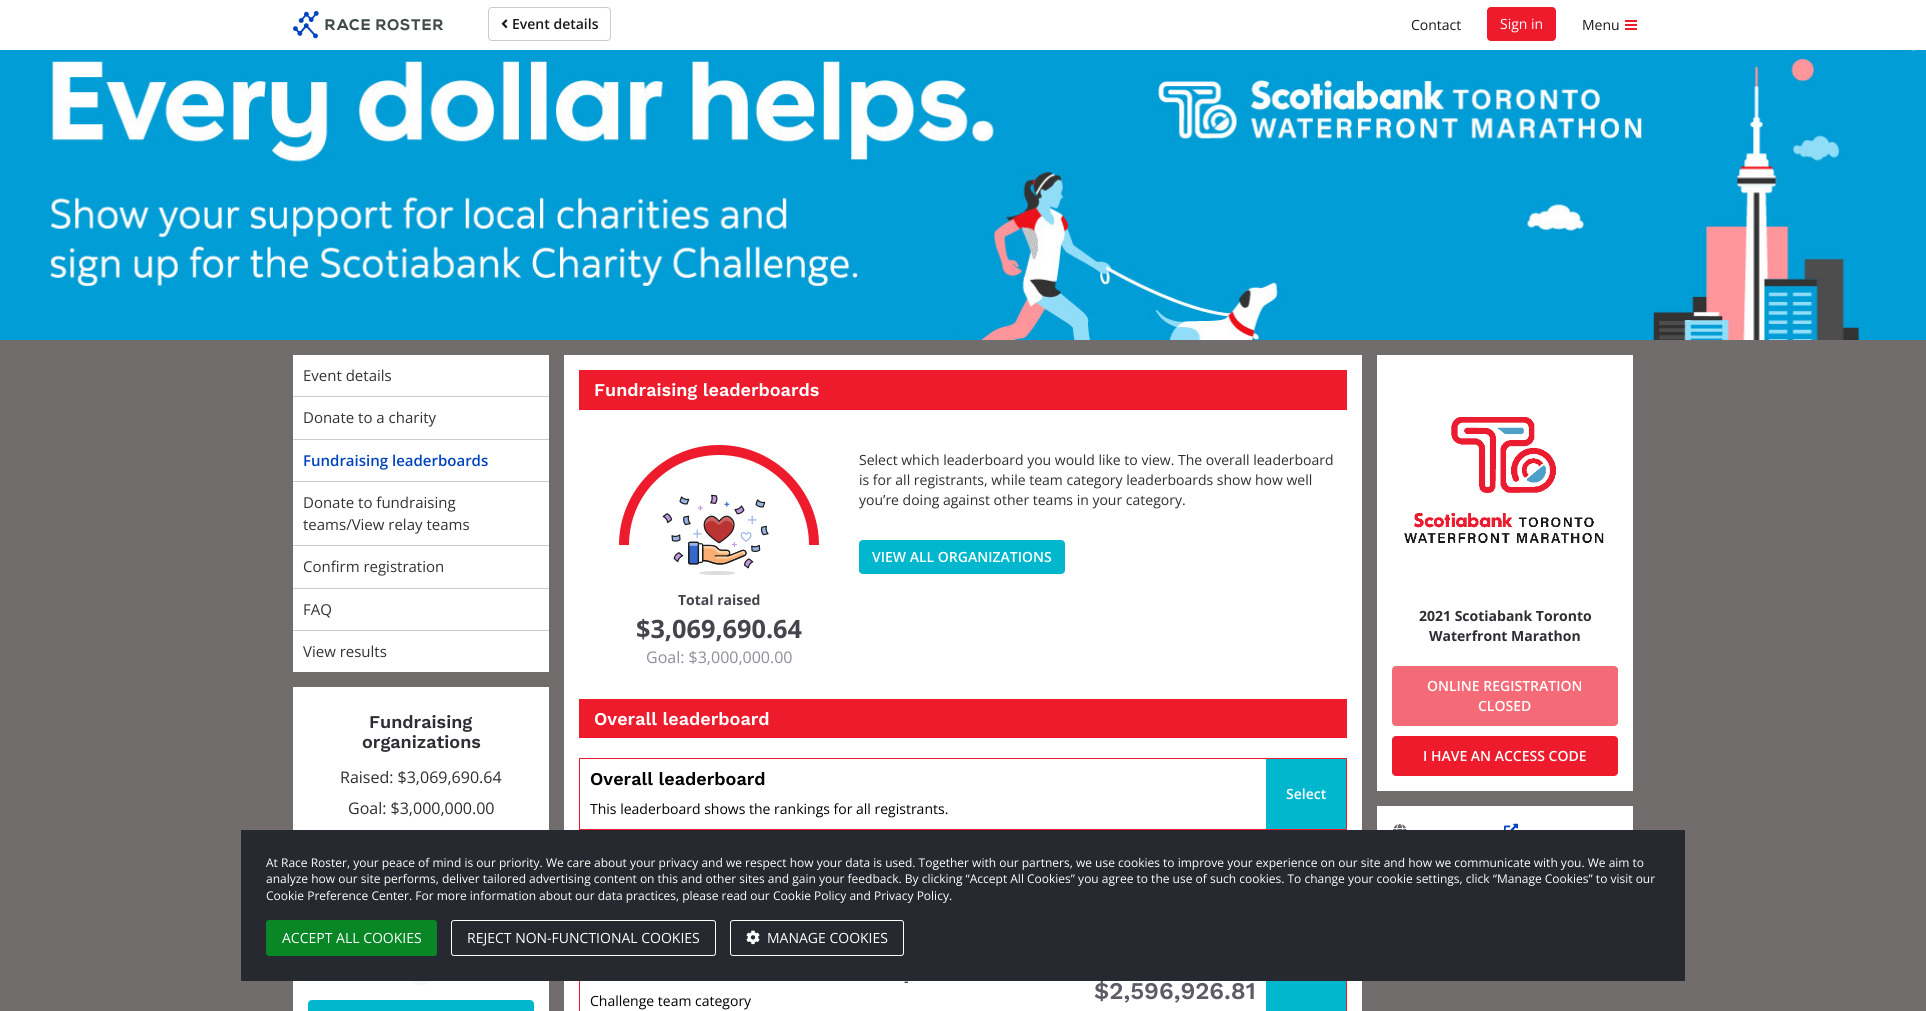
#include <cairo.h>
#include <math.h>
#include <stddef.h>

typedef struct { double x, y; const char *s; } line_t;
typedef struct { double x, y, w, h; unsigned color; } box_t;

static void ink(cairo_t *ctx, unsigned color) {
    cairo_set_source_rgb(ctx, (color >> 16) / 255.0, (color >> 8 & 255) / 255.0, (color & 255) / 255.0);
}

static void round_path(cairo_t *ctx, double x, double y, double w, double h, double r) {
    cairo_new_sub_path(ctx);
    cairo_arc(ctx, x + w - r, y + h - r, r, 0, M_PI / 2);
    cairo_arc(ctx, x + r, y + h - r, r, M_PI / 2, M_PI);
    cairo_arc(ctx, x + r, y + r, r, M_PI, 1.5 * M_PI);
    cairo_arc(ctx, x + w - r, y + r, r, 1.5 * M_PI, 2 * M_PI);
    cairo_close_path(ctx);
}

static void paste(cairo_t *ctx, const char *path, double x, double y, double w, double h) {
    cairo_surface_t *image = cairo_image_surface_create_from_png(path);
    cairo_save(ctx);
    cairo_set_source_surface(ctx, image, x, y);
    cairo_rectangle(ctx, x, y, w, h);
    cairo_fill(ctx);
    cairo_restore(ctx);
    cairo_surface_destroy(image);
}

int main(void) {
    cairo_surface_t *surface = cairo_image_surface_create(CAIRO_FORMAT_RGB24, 1926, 1011);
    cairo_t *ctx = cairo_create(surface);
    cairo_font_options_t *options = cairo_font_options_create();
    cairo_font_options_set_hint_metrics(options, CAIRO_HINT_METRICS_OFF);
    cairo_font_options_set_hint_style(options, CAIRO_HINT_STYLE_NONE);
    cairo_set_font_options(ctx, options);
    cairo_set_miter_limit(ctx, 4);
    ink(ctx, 0x726D6D);
    cairo_paint(ctx);
    ink(ctx, 0xFFFFFF);
    cairo_rectangle(ctx, 0, 0, 1926, 50);
    cairo_fill(ctx);
    paste(ctx, "media/1.png", 293, 11, 150, 28);
    round_path(ctx, 488.5, 7.5, 122, 33, 3.5);
    ink(ctx, 0xCCCCCC);
    cairo_set_line_width(ctx, 1);
    cairo_stroke(ctx);
    paste(ctx, "media/2.png", 501, 19, 7, 10);
    cairo_select_font_face(ctx, "Open Sans SemiBold", CAIRO_FONT_SLANT_NORMAL, CAIRO_FONT_WEIGHT_NORMAL);
    cairo_set_font_size(ctx, 14);
    ink(ctx, 0x1A1A1A);
    cairo_move_to(ctx, 512, 29);
    cairo_show_text(ctx, "Event details");
    cairo_select_font_face(ctx, "Open Sans", CAIRO_FONT_SLANT_NORMAL, CAIRO_FONT_WEIGHT_NORMAL);
    cairo_move_to(ctx, 1411, 30);
    cairo_show_text(ctx, "Contact");
    ink(ctx, 0xEE1B2D);
    round_path(ctx, 1487, 7, 69, 34, 4);
    cairo_fill(ctx);
    ink(ctx, 0xFFFFFF);
    cairo_move_to(ctx, 1500, 29);
    cairo_show_text(ctx, "Sign in");
    ink(ctx, 0x1A1A1A);
    cairo_move_to(ctx, 1582, 30);
    cairo_show_text(ctx, "Menu");
    {
        static const box_t items[] = {
            {1625, 20, 12, 2, 0xEE1B2D},
            {1625, 24, 12, 2, 0xEE1B2D},
            {1625, 28, 12, 2, 0xEE1B2D},
        };
        for (size_t i = 0; i < sizeof items / sizeof *items; i++) {
            ink(ctx, items[i].color);
            cairo_rectangle(ctx, items[i].x, items[i].y, items[i].w, items[i].h);
            cairo_fill(ctx);
        }
    }
    paste(ctx, "media/3.png", 0, 50, 1926, 290);
    ink(ctx, 0xFFFFFF);
    cairo_rectangle(ctx, 293, 355, 256, 317);
    cairo_fill(ctx);
    ink(ctx, 0xCCCCCC);
    cairo_rectangle(ctx, 293, 396, 256, 1);
    cairo_fill(ctx);
    cairo_set_font_size(ctx, 15);
    ink(ctx, 0x333333);
    cairo_move_to(ctx, 303, 381);
    cairo_show_text(ctx, "Event details");
    ink(ctx, 0xCCCCCC);
    cairo_rectangle(ctx, 293, 439, 256, 1);
    cairo_fill(ctx);
    ink(ctx, 0x333333);
    cairo_move_to(ctx, 303, 423);
    cairo_show_text(ctx, "Donate to a charity");
    ink(ctx, 0xCCCCCC);
    cairo_rectangle(ctx, 293, 481, 256, 1);
    cairo_fill(ctx);
    cairo_select_font_face(ctx, "Open Sans SemiBold", CAIRO_FONT_SLANT_NORMAL, CAIRO_FONT_WEIGHT_NORMAL);
    ink(ctx, 0x0043BF);
    cairo_move_to(ctx, 303, 466);
    cairo_show_text(ctx, "Fundraising leaderboards");
    ink(ctx, 0xCCCCCC);
    cairo_rectangle(ctx, 293, 545, 256, 1);
    cairo_fill(ctx);
    cairo_select_font_face(ctx, "Open Sans", CAIRO_FONT_SLANT_NORMAL, CAIRO_FONT_WEIGHT_NORMAL);
    ink(ctx, 0x333333);
    cairo_move_to(ctx, 303, 508);
    cairo_show_text(ctx, "Donate to fundraising");
    cairo_move_to(ctx, 303, 530);
    cairo_show_text(ctx, "teams/View relay teams");
    ink(ctx, 0xCCCCCC);
    cairo_rectangle(ctx, 293, 588, 256, 1);
    cairo_fill(ctx);
    ink(ctx, 0x333333);
    cairo_move_to(ctx, 303, 572);
    cairo_show_text(ctx, "Confirm registration");
    ink(ctx, 0xCCCCCC);
    cairo_rectangle(ctx, 293, 630, 256, 1);
    cairo_fill(ctx);
    ink(ctx, 0x333333);
    cairo_move_to(ctx, 303, 615);
    cairo_show_text(ctx, "FAQ");
    cairo_move_to(ctx, 303, 657);
    cairo_show_text(ctx, "View results");
    ink(ctx, 0xFFFFFF);
    cairo_rectangle(ctx, 293, 687, 256, 324);
    cairo_fill(ctx);
    cairo_select_font_face(ctx, "Work Sans SemiBold", CAIRO_FONT_SLANT_NORMAL, CAIRO_FONT_WEIGHT_NORMAL);
    cairo_set_font_size(ctx, 18);
    ink(ctx, 0x2D2D33);
    cairo_move_to(ctx, 369, 728);
    cairo_show_text(ctx, "Fundraising");
    cairo_move_to(ctx, 362, 748);
    cairo_show_text(ctx, "organizations");
    cairo_select_font_face(ctx, "Open Sans", CAIRO_FONT_SLANT_NORMAL, CAIRO_FONT_WEIGHT_NORMAL);
    cairo_set_font_size(ctx, 16);
    cairo_move_to(ctx, 340, 783);
    cairo_show_text(ctx, "Raised: $3,069,690.64");
    cairo_move_to(ctx, 348, 814);
    cairo_show_text(ctx, "Goal: $3,000,000.00");
    ink(ctx, 0xF7F7F7);
    cairo_new_path(ctx);
    cairo_arc(ctx, 421, 970, 17.5, 0, 2 * M_PI);
    cairo_fill_preserve(ctx);
    ink(ctx, 0xFFFFFF);
    cairo_set_line_width(ctx, 5);
    cairo_stroke(ctx);
    ink(ctx, 0x00B7CD);
    round_path(ctx, 308, 1000, 226, 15, 4);
    cairo_fill(ctx);
    ink(ctx, 0xFFFFFF);
    cairo_rectangle(ctx, 564, 355, 798, 656);
    cairo_fill(ctx);
    ink(ctx, 0xEE1B2D);
    cairo_rectangle(ctx, 579, 370, 768, 40);
    cairo_fill(ctx);
    cairo_select_font_face(ctx, "Work Sans SemiBold", CAIRO_FONT_SLANT_NORMAL, CAIRO_FONT_WEIGHT_NORMAL);
    cairo_set_font_size(ctx, 18);
    ink(ctx, 0xFFFFFF);
    cairo_move_to(ctx, 594, 396);
    cairo_show_text(ctx, "Fundraising leaderboards");
    cairo_select_font_face(ctx, "Open Sans", CAIRO_FONT_SLANT_NORMAL, CAIRO_FONT_WEIGHT_NORMAL);
    cairo_set_font_size(ctx, 14);
    ink(ctx, 0x2D2D33);
    {
        static const line_t items[] = {
            {859, 465, "Select which leaderboard you would like to view. The overall leaderboard"},
            {859, 485, "is for all registrants, while team category leaderboards show how well"},
            {859, 505, "you’re doing against other teams in your category."},
        };
        for (size_t i = 0; i < sizeof items / sizeof *items; i++) {
            cairo_move_to(ctx, items[i].x, items[i].y);
            cairo_show_text(ctx, items[i].s);
        }
    }
    ink(ctx, 0x00B7CD);
    round_path(ctx, 859, 540, 206, 34, 4);
    cairo_fill(ctx);
    cairo_select_font_face(ctx, "Open Sans SemiBold", CAIRO_FONT_SLANT_NORMAL, CAIRO_FONT_WEIGHT_NORMAL);
    ink(ctx, 0xFFFFFF);
    cairo_move_to(ctx, 872, 562);
    cairo_show_text(ctx, "VIEW ALL ORGANIZATIONS");
    paste(ctx, "media/4.png", 662, 494, 107, 81);
    ink(ctx, 0xEE1B2D);
    cairo_set_fill_rule(ctx, CAIRO_FILL_RULE_EVEN_ODD);
    cairo_new_path(ctx);
    cairo_move_to(ctx, 819, 545);
    cairo_line_to(ctx, 619, 545);
    cairo_curve_to(ctx, 619, 490, 664, 445, 719, 445);
    cairo_curve_to(ctx, 774, 445, 819, 490, 819, 545);
    cairo_close_path(ctx);
    cairo_move_to(ctx, 809, 545);
    cairo_line_to(ctx, 629, 545);
    cairo_curve_to(ctx, 629, 495, 669, 455, 719, 455);
    cairo_curve_to(ctx, 769, 455, 809, 495, 809, 545);
    cairo_close_path(ctx);
    cairo_fill(ctx);
    cairo_select_font_face(ctx, "Open Sans", CAIRO_FONT_SLANT_NORMAL, CAIRO_FONT_WEIGHT_BOLD);
    ink(ctx, 0x44444D);
    cairo_move_to(ctx, 678, 605);
    cairo_show_text(ctx, "Total raised");
    cairo_set_font_size(ctx, 25.25);
    cairo_move_to(ctx, 636, 638);
    cairo_show_text(ctx, "$3,069,690.64");
    cairo_select_font_face(ctx, "Open Sans", CAIRO_FONT_SLANT_NORMAL, CAIRO_FONT_WEIGHT_NORMAL);
    cairo_set_font_size(ctx, 16);
    ink(ctx, 0x8D8D99);
    cairo_move_to(ctx, 646, 663);
    cairo_show_text(ctx, "Goal: $3,000,000.00");
    ink(ctx, 0xEE1B2D);
    cairo_rectangle(ctx, 579, 699, 768, 39);
    cairo_fill(ctx);
    cairo_select_font_face(ctx, "Work Sans SemiBold", CAIRO_FONT_SLANT_NORMAL, CAIRO_FONT_WEIGHT_NORMAL);
    cairo_set_font_size(ctx, 18);
    ink(ctx, 0xFFFFFF);
    cairo_move_to(ctx, 594, 725);
    cairo_show_text(ctx, "Overall leaderboard");
    cairo_rectangle(ctx, 579.5, 758.5, 767, 71);
    ink(ctx, 0xEE1B2D);
    cairo_set_line_width(ctx, 1);
    cairo_stroke(ctx);
    ink(ctx, 0x000000);
    cairo_move_to(ctx, 590, 785);
    cairo_show_text(ctx, "Overall leaderboard");
    cairo_select_font_face(ctx, "Open Sans", CAIRO_FONT_SLANT_NORMAL, CAIRO_FONT_WEIGHT_NORMAL);
    cairo_set_font_size(ctx, 14);
    cairo_move_to(ctx, 590, 814);
    cairo_show_text(ctx, "This leaderboard shows the rankings for all registrants.");
    ink(ctx, 0x00B7CD);
    cairo_rectangle(ctx, 1266, 759, 80, 70);
    cairo_fill(ctx);
    cairo_select_font_face(ctx, "Open Sans SemiBold", CAIRO_FONT_SLANT_NORMAL, CAIRO_FONT_WEIGHT_NORMAL);
    ink(ctx, 0xFFFFFF);
    cairo_move_to(ctx, 1286, 799);
    cairo_show_text(ctx, "Select");
    cairo_rectangle(ctx, 579.5, 930.5, 767, 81);
    ink(ctx, 0xEE1B2D);
    cairo_stroke(ctx);
    cairo_select_font_face(ctx, "Open Sans", CAIRO_FONT_SLANT_NORMAL, CAIRO_FONT_WEIGHT_NORMAL);
    ink(ctx, 0x000000);
    cairo_move_to(ctx, 904, 986);
    cairo_show_text(ctx, "-");
    cairo_move_to(ctx, 590, 1006);
    cairo_show_text(ctx, "Challenge team category");
    cairo_select_font_face(ctx, "Work Sans SemiBold", CAIRO_FONT_SLANT_NORMAL, CAIRO_FONT_WEIGHT_NORMAL);
    cairo_set_font_size(ctx, 24);
    ink(ctx, 0x5C5C66);
    cairo_move_to(ctx, 1094, 999);
    cairo_show_text(ctx, "$2,596,926.81");
    ink(ctx, 0x00B7CD);
    cairo_rectangle(ctx, 1266, 981, 80, 30);
    cairo_fill(ctx);
    ink(ctx, 0xFFFFFF);
    cairo_rectangle(ctx, 1377, 355, 256, 436);
    cairo_fill(ctx);
    paste(ctx, "media/5.png", 1404, 416, 200, 127);
    cairo_select_font_face(ctx, "Open Sans", CAIRO_FONT_SLANT_NORMAL, CAIRO_FONT_WEIGHT_BOLD);
    cairo_set_font_size(ctx, 14);
    ink(ctx, 0x2D2D33);
    cairo_move_to(ctx, 1419, 621);
    cairo_show_text(ctx, "2021 Scotiabank Toronto");
    cairo_move_to(ctx, 1429, 641);
    cairo_show_text(ctx, "Waterfront Marathon");
    ink(ctx, 0xF46B77);
    round_path(ctx, 1392.5, 666.5, 225, 59, 3.5);
    cairo_fill_preserve(ctx);
    cairo_stroke(ctx);
    cairo_select_font_face(ctx, "Open Sans SemiBold", CAIRO_FONT_SLANT_NORMAL, CAIRO_FONT_WEIGHT_NORMAL);
    ink(ctx, 0xFFFFFF);
    cairo_move_to(ctx, 1427, 691);
    cairo_show_text(ctx, "ONLINE REGISTRATION");
    cairo_move_to(ctx, 1478, 711);
    cairo_show_text(ctx, "CLOSED");
    ink(ctx, 0xEE1B2D);
    round_path(ctx, 1392, 736, 226, 40, 4);
    cairo_fill(ctx);
    ink(ctx, 0xFFFFFF);
    cairo_move_to(ctx, 1423, 761);
    cairo_show_text(ctx, "I HAVE AN ACCESS CODE");
    cairo_rectangle(ctx, 1377, 806, 256, 24);
    cairo_fill(ctx);
    paste(ctx, "media/6.png", 1393, 824, 14, 6);
    paste(ctx, "media/7.png", 1504, 823, 14, 7);
    ink(ctx, 0x272930);
    cairo_rectangle(ctx, 241, 830, 1444, 151);
    cairo_fill(ctx);
    cairo_select_font_face(ctx, "Open Sans", CAIRO_FONT_SLANT_NORMAL, CAIRO_FONT_WEIGHT_NORMAL);
    cairo_set_font_size(ctx, 12);
    ink(ctx, 0xFFFFFF);
    {
        static const line_t items[] = {
            {266, 867, "At Race Roster, your peace of mind is our priority. We care about your privacy and we respect how your data is used. Together with our partners, we use cookies to improve your experience on our site and how we communicate with you. We aim to"},
            {266, 883, "analyze how our site performs, deliver tailored advertising content on this and other sites and gain your feedback. By clicking “Accept All Cookies” you agree to the use of such cookies. To change your cookie settings, click “Manage Cookies” to visit our"},
            {266, 900, "Cookie Preference Center. For more information about our data practices, please read our Cookie Policy and Privacy Policy."},
        };
        for (size_t i = 0; i < sizeof items / sizeof *items; i++) {
            cairo_move_to(ctx, items[i].x, items[i].y);
            cairo_show_text(ctx, items[i].s);
        }
    }
    ink(ctx, 0x098726);
    round_path(ctx, 266, 920, 171, 36, 3);
    cairo_fill(ctx);
    cairo_set_font_size(ctx, 14);
    ink(ctx, 0xFFFFFF);
    cairo_move_to(ctx, 282, 943);
    cairo_show_text(ctx, "ACCEPT ALL COOKIES");
    round_path(ctx, 451.5, 920.5, 264, 35, 2.5);
    cairo_stroke(ctx);
    cairo_move_to(ctx, 467, 943);
    cairo_show_text(ctx, "REJECT NON-FUNCTIONAL COOKIES");
    round_path(ctx, 730.5, 920.5, 173, 35, 2.5);
    cairo_stroke(ctx);
    paste(ctx, "media/8.png", 746, 930, 14, 15);
    cairo_move_to(ctx, 767, 943);
    cairo_show_text(ctx, "MANAGE COOKIES");
    cairo_surface_write_to_png(surface, "image.png");
    cairo_font_options_destroy(options);
    cairo_destroy(ctx);
    cairo_surface_destroy(surface);
    return 0;
}
